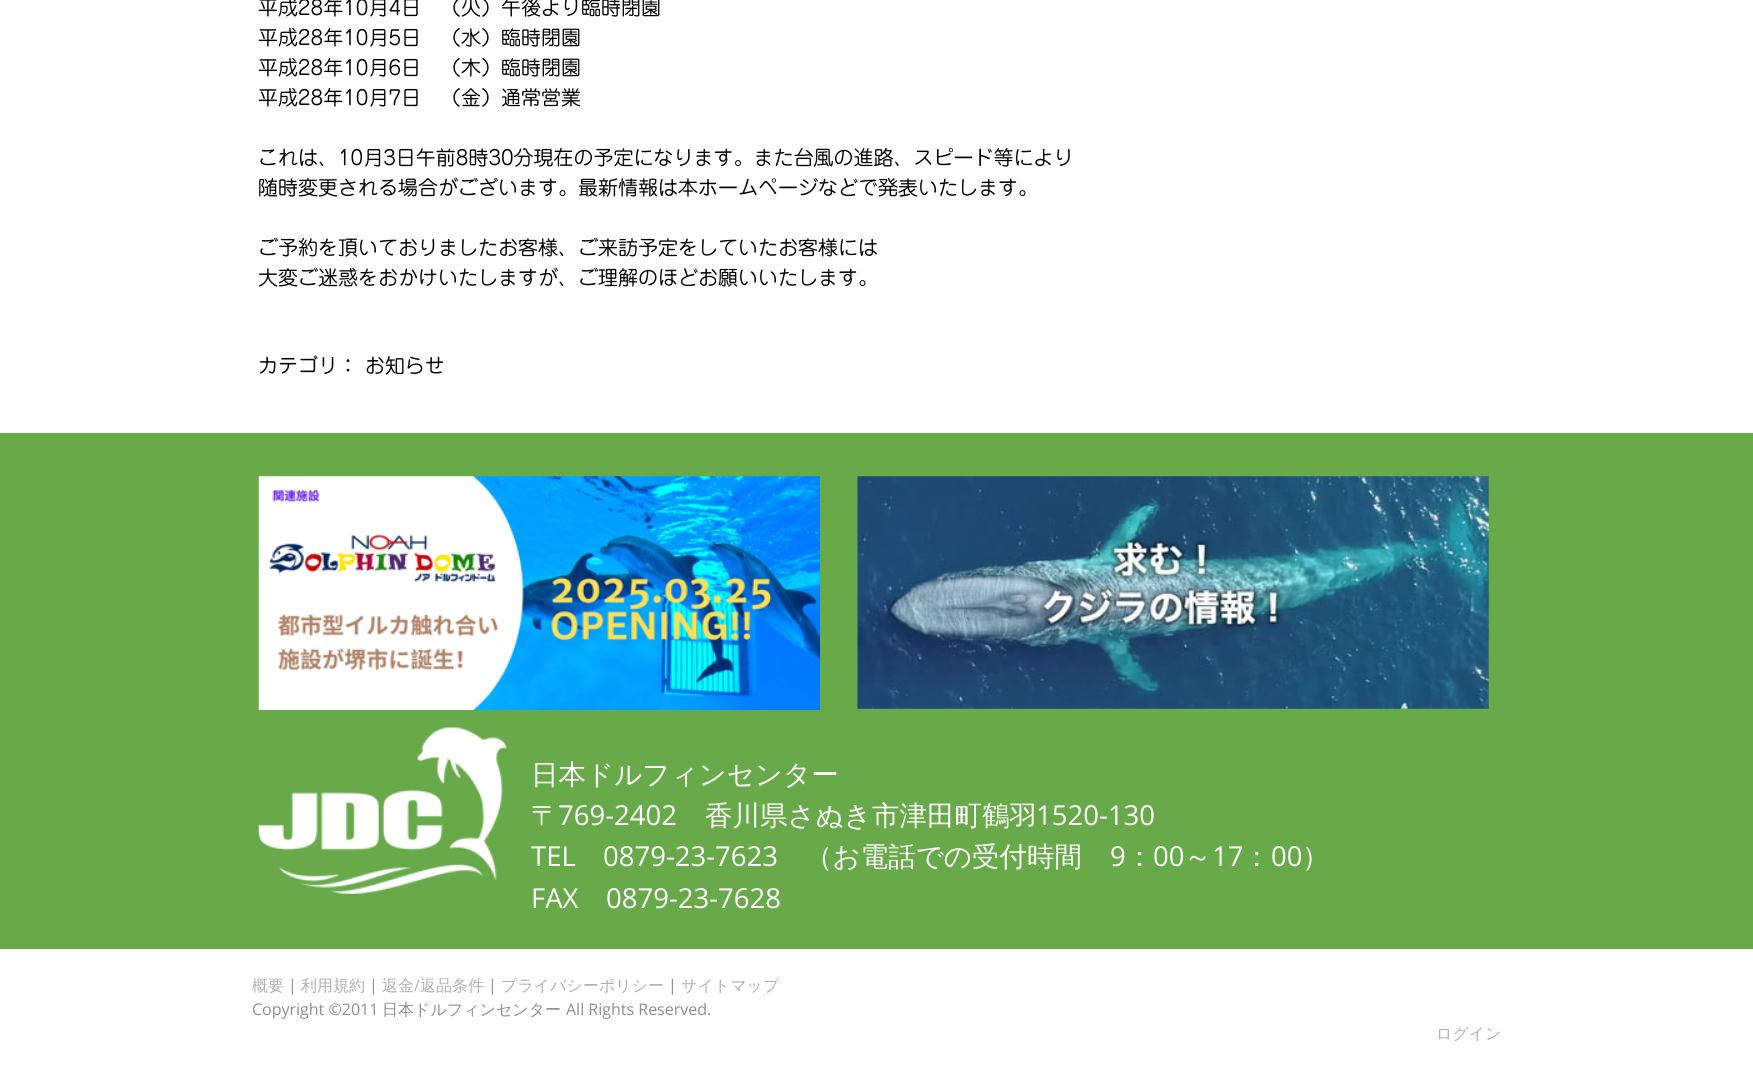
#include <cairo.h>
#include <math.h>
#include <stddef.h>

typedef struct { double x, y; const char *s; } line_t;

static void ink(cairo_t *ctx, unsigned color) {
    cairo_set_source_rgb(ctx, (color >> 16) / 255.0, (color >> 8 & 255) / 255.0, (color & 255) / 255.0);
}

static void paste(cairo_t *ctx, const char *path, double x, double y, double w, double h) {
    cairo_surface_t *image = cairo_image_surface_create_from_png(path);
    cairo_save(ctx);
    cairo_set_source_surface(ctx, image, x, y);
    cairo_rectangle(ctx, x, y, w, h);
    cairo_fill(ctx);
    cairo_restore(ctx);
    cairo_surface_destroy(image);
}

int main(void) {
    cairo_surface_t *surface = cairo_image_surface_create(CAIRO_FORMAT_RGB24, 1753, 1071);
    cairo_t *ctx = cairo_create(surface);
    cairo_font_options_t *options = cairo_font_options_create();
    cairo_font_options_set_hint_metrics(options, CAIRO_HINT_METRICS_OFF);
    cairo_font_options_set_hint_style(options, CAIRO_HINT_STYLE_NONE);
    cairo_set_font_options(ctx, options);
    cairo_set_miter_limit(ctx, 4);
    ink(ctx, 0xFFFFFF);
    cairo_paint(ctx);
    cairo_select_font_face(ctx, "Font", CAIRO_FONT_SLANT_NORMAL, CAIRO_FONT_WEIGHT_NORMAL);
    cairo_set_font_size(ctx, 20);
    ink(ctx, 0x000000);
    {
        static const line_t items[] = {
            {258, 15, "平成28年10月4日　（火）午後より臨時閉園"},
            {258, 45, "平成28年10月5日　（水）臨時閉園"},
            {258, 75, "平成28年10月6日　（木）臨時閉園"},
            {258, 105, "平成28年10月7日　（金）通常営業"},
            {258, 165, "これは、10月3日午前8時30分現在の予定になります。また台風の進路、スピード等により"},
            {258, 195, "随時変更される場合がございます。最新情報は本ホームページなどで発表いたします。"},
            {258, 255, "ご予約を頂いておりましたお客様、ご来訪予定をしていたお客様には"},
            {258, 285, "大変ご迷惑をおかけいたしますが、ご理解のほどお願いいたします。"},
            {258, 373, "カテゴリ： お知らせ"},
        };
        for (size_t i = 0; i < sizeof items / sizeof *items; i++) {
            cairo_move_to(ctx, items[i].x, items[i].y);
            cairo_show_text(ctx, items[i].s);
        }
    }
    ink(ctx, 0x68A94A);
    cairo_rectangle(ctx, 0, 433, 1753, 516);
    cairo_fill(ctx);
    paste(ctx, "media/1.png", 258, 476, 562, 234);
    paste(ctx, "media/2.png", 857, 476, 632, 233);
    paste(ctx, "media/3.png", 258, 727, 249, 167);
    cairo_select_font_face(ctx, "WenQuanYi Zen Hei Medium", CAIRO_FONT_SLANT_NORMAL, CAIRO_FONT_WEIGHT_NORMAL);
    cairo_set_font_size(ctx, 27.5);
    ink(ctx, 0xFFFFFF);
    cairo_move_to(ctx, 531, 784);
    cairo_show_text(ctx, "日本ドルフィンセンター");
    cairo_move_to(ctx, 531, 825);
    cairo_show_text(ctx, "〒");
    cairo_select_font_face(ctx, "Open Sans", CAIRO_FONT_SLANT_NORMAL, CAIRO_FONT_WEIGHT_NORMAL);
    cairo_move_to(ctx, 558, 825);
    cairo_show_text(ctx, "769-2402");
    cairo_select_font_face(ctx, "WenQuanYi Zen Hei Medium", CAIRO_FONT_SLANT_NORMAL, CAIRO_FONT_WEIGHT_NORMAL);
    cairo_move_to(ctx, 705, 825);
    cairo_show_text(ctx, "香川県さぬき市津田町鶴羽");
    cairo_select_font_face(ctx, "Open Sans", CAIRO_FONT_SLANT_NORMAL, CAIRO_FONT_WEIGHT_NORMAL);
    {
        static const line_t items[] = {
            {1036, 825, "1520-130"},
            {531, 866, "TEL"},
            {603, 866, "0879-23-7623"},
        };
        for (size_t i = 0; i < sizeof items / sizeof *items; i++) {
            cairo_move_to(ctx, items[i].x, items[i].y);
            cairo_show_text(ctx, items[i].s);
        }
    }
    cairo_select_font_face(ctx, "WenQuanYi Zen Hei Medium", CAIRO_FONT_SLANT_NORMAL, CAIRO_FONT_WEIGHT_NORMAL);
    cairo_move_to(ctx, 805, 866);
    cairo_show_text(ctx, "（お電話での受付時間");
    cairo_select_font_face(ctx, "Open Sans", CAIRO_FONT_SLANT_NORMAL, CAIRO_FONT_WEIGHT_NORMAL);
    cairo_move_to(ctx, 1110, 866);
    cairo_show_text(ctx, "9");
    cairo_select_font_face(ctx, "WenQuanYi Zen Hei Medium", CAIRO_FONT_SLANT_NORMAL, CAIRO_FONT_WEIGHT_NORMAL);
    cairo_move_to(ctx, 1126, 866);
    cairo_show_text(ctx, "：");
    cairo_select_font_face(ctx, "Open Sans", CAIRO_FONT_SLANT_NORMAL, CAIRO_FONT_WEIGHT_NORMAL);
    cairo_move_to(ctx, 1153, 866);
    cairo_show_text(ctx, "00");
    cairo_select_font_face(ctx, "WenQuanYi Zen Hei Medium", CAIRO_FONT_SLANT_NORMAL, CAIRO_FONT_WEIGHT_NORMAL);
    cairo_move_to(ctx, 1184, 866);
    cairo_show_text(ctx, "～");
    cairo_select_font_face(ctx, "Open Sans", CAIRO_FONT_SLANT_NORMAL, CAIRO_FONT_WEIGHT_NORMAL);
    cairo_move_to(ctx, 1212, 866);
    cairo_show_text(ctx, "17");
    cairo_select_font_face(ctx, "WenQuanYi Zen Hei Medium", CAIRO_FONT_SLANT_NORMAL, CAIRO_FONT_WEIGHT_NORMAL);
    cairo_move_to(ctx, 1243, 866);
    cairo_show_text(ctx, "：");
    cairo_select_font_face(ctx, "Open Sans", CAIRO_FONT_SLANT_NORMAL, CAIRO_FONT_WEIGHT_NORMAL);
    cairo_move_to(ctx, 1271, 866);
    cairo_show_text(ctx, "00");
    cairo_select_font_face(ctx, "WenQuanYi Zen Hei Medium", CAIRO_FONT_SLANT_NORMAL, CAIRO_FONT_WEIGHT_NORMAL);
    cairo_move_to(ctx, 1302, 866);
    cairo_show_text(ctx, "）");
    cairo_select_font_face(ctx, "Open Sans", CAIRO_FONT_SLANT_NORMAL, CAIRO_FONT_WEIGHT_NORMAL);
    cairo_move_to(ctx, 531, 908);
    cairo_show_text(ctx, "FAX");
    cairo_move_to(ctx, 606, 908);
    cairo_show_text(ctx, "0879-23-7628");
    cairo_select_font_face(ctx, "WenQuanYi Zen Hei Medium", CAIRO_FONT_SLANT_NORMAL, CAIRO_FONT_WEIGHT_NORMAL);
    cairo_set_font_size(ctx, 16);
    ink(ctx, 0xB0B0B0);
    cairo_move_to(ctx, 252, 991);
    cairo_show_text(ctx, "概要");
    cairo_select_font_face(ctx, "Open Sans", CAIRO_FONT_SLANT_NORMAL, CAIRO_FONT_WEIGHT_NORMAL);
    ink(ctx, 0x8E8E8E);
    cairo_move_to(ctx, 288, 991);
    cairo_show_text(ctx, "|");
    cairo_select_font_face(ctx, "WenQuanYi Zen Hei Medium", CAIRO_FONT_SLANT_NORMAL, CAIRO_FONT_WEIGHT_NORMAL);
    ink(ctx, 0xB0B0B0);
    cairo_move_to(ctx, 301, 991);
    cairo_show_text(ctx, "利用規約");
    cairo_select_font_face(ctx, "Open Sans", CAIRO_FONT_SLANT_NORMAL, CAIRO_FONT_WEIGHT_NORMAL);
    ink(ctx, 0x8E8E8E);
    cairo_move_to(ctx, 369, 991);
    cairo_show_text(ctx, "|");
    cairo_select_font_face(ctx, "WenQuanYi Zen Hei Medium", CAIRO_FONT_SLANT_NORMAL, CAIRO_FONT_WEIGHT_NORMAL);
    ink(ctx, 0xB0B0B0);
    cairo_move_to(ctx, 382, 991);
    cairo_show_text(ctx, "返金");
    cairo_select_font_face(ctx, "Open Sans", CAIRO_FONT_SLANT_NORMAL, CAIRO_FONT_WEIGHT_NORMAL);
    cairo_move_to(ctx, 414, 991);
    cairo_show_text(ctx, "/");
    cairo_select_font_face(ctx, "WenQuanYi Zen Hei Medium", CAIRO_FONT_SLANT_NORMAL, CAIRO_FONT_WEIGHT_NORMAL);
    cairo_move_to(ctx, 420, 991);
    cairo_show_text(ctx, "返品条件");
    cairo_select_font_face(ctx, "Open Sans", CAIRO_FONT_SLANT_NORMAL, CAIRO_FONT_WEIGHT_NORMAL);
    ink(ctx, 0x8E8E8E);
    cairo_move_to(ctx, 488, 991);
    cairo_show_text(ctx, "|");
    cairo_select_font_face(ctx, "WenQuanYi Zen Hei Medium", CAIRO_FONT_SLANT_NORMAL, CAIRO_FONT_WEIGHT_NORMAL);
    ink(ctx, 0xB0B0B0);
    cairo_move_to(ctx, 501, 991);
    cairo_show_text(ctx, "プライバシーポリシー");
    cairo_select_font_face(ctx, "Open Sans", CAIRO_FONT_SLANT_NORMAL, CAIRO_FONT_WEIGHT_NORMAL);
    ink(ctx, 0x8E8E8E);
    cairo_move_to(ctx, 668, 991);
    cairo_show_text(ctx, "|");
    cairo_select_font_face(ctx, "WenQuanYi Zen Hei Medium", CAIRO_FONT_SLANT_NORMAL, CAIRO_FONT_WEIGHT_NORMAL);
    ink(ctx, 0xB0B0B0);
    cairo_move_to(ctx, 681, 991);
    cairo_show_text(ctx, "サイトマップ");
    cairo_select_font_face(ctx, "Open Sans", CAIRO_FONT_SLANT_NORMAL, CAIRO_FONT_WEIGHT_NORMAL);
    ink(ctx, 0x8E8E8E);
    cairo_move_to(ctx, 252, 1015);
    cairo_show_text(ctx, "Copyright ©2011");
    cairo_select_font_face(ctx, "WenQuanYi Zen Hei Medium", CAIRO_FONT_SLANT_NORMAL, CAIRO_FONT_WEIGHT_NORMAL);
    cairo_move_to(ctx, 382, 1015);
    cairo_show_text(ctx, "日本ドルフィンセンター");
    cairo_select_font_face(ctx, "Open Sans", CAIRO_FONT_SLANT_NORMAL, CAIRO_FONT_WEIGHT_NORMAL);
    cairo_move_to(ctx, 566, 1015);
    cairo_show_text(ctx, "All Rights Reserved.");
    cairo_select_font_face(ctx, "WenQuanYi Zen Hei Medium", CAIRO_FONT_SLANT_NORMAL, CAIRO_FONT_WEIGHT_NORMAL);
    ink(ctx, 0xB0B0B0);
    cairo_move_to(ctx, 1436, 1039);
    cairo_show_text(ctx, "ログイン");
    cairo_surface_write_to_png(surface, "image.png");
    cairo_font_options_destroy(options);
    cairo_destroy(ctx);
    cairo_surface_destroy(surface);
    return 0;
}
